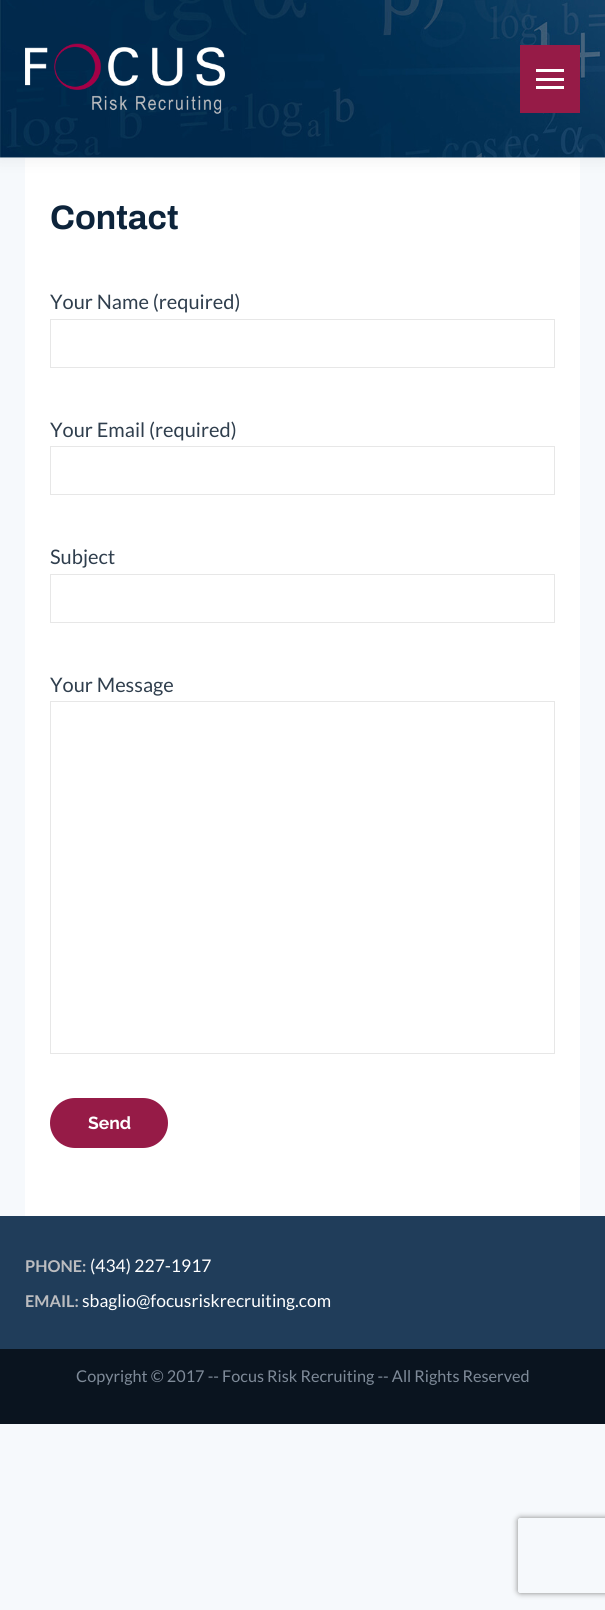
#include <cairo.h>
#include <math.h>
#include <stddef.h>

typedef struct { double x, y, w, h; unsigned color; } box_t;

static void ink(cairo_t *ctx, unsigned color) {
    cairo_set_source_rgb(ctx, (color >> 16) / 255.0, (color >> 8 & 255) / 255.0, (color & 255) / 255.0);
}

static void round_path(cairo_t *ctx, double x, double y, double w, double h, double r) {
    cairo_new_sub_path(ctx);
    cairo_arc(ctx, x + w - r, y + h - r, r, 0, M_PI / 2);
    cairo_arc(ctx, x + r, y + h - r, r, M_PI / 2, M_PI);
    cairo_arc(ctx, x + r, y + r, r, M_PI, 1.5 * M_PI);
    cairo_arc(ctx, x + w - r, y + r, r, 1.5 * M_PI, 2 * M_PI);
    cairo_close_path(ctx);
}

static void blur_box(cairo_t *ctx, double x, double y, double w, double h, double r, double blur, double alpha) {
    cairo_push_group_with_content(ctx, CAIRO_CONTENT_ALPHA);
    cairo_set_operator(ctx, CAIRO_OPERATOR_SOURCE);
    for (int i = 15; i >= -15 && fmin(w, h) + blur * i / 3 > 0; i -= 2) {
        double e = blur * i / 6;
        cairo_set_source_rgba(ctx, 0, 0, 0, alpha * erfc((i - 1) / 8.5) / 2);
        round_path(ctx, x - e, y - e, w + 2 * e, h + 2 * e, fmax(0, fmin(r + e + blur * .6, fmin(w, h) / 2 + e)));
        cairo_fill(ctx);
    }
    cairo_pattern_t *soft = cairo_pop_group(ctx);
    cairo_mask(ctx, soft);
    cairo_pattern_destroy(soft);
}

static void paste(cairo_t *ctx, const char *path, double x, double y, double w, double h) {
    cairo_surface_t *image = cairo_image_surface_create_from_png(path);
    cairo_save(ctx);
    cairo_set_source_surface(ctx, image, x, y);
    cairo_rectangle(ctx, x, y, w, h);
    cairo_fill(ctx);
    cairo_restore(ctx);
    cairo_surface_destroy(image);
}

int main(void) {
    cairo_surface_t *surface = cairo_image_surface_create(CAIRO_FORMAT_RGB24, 605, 1610);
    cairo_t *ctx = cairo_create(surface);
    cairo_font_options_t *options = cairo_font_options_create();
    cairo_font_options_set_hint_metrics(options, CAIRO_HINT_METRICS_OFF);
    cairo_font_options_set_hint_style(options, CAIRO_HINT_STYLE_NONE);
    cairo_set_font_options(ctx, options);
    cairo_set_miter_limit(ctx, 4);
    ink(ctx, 0xF6F9FC);
    cairo_paint(ctx);
    ink(ctx, 0xFFFFFF);
    cairo_rectangle(ctx, 25, 158, 555, 1058);
    cairo_fill(ctx);
    ink(ctx, 0x000000);
    blur_box(ctx, -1, -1, 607, 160, 0, 9.5, 0.07);
    ink(ctx, 0xFFFFFF);
    cairo_rectangle(ctx, 0, 157, 605, 1);
    cairo_fill(ctx);
    paste(ctx, "media/1.png", 0, 0, 605, 158);
    paste(ctx, "media/2.png", 25, 43, 200, 71);
    {
        static const box_t items[] = {
            {520, 45, 60, 68, 0x961B47},
            {536, 69, 28, 3, 0xFFFFFF},
            {536, 78, 28, 3, 0xFFFFFF},
            {536, 86, 28, 3, 0xFFFFFF},
        };
        for (size_t i = 0; i < sizeof items / sizeof *items; i++) {
            ink(ctx, items[i].color);
            cairo_rectangle(ctx, items[i].x, items[i].y, items[i].w, items[i].h);
            cairo_fill(ctx);
        }
    }
    cairo_select_font_face(ctx, "Archivo", CAIRO_FONT_SLANT_NORMAL, CAIRO_FONT_WEIGHT_BOLD);
    cairo_set_font_size(ctx, 34);
    ink(ctx, 0x0D243B);
    cairo_move_to(ctx, 50, 229);
    cairo_show_text(ctx, "Contact");
    cairo_select_font_face(ctx, "Lato", CAIRO_FONT_SLANT_NORMAL, CAIRO_FONT_WEIGHT_NORMAL);
    cairo_set_font_size(ctx, 20);
    ink(ctx, 0x2F3E4D);
    cairo_move_to(ctx, 50, 309);
    cairo_show_text(ctx, "Your Name (required)");
    cairo_rectangle(ctx, 50.5, 319.5, 504, 48);
    ink(ctx, 0xE7E7E7);
    cairo_set_line_width(ctx, 1);
    cairo_stroke(ctx);
    ink(ctx, 0x2F3E4D);
    cairo_move_to(ctx, 50, 437);
    cairo_show_text(ctx, "Your Email (required)");
    cairo_rectangle(ctx, 50.5, 446.5, 504, 48);
    ink(ctx, 0xE7E7E7);
    cairo_stroke(ctx);
    ink(ctx, 0x2F3E4D);
    cairo_move_to(ctx, 50, 564);
    cairo_show_text(ctx, "Subject");
    cairo_rectangle(ctx, 50.5, 574.5, 504, 48);
    ink(ctx, 0xE7E7E7);
    cairo_stroke(ctx);
    ink(ctx, 0x2F3E4D);
    cairo_move_to(ctx, 50, 692);
    cairo_show_text(ctx, "Your Message");
    cairo_rectangle(ctx, 50.5, 701.5, 504, 352);
    ink(ctx, 0xE7E7E7);
    cairo_stroke(ctx);
    ink(ctx, 0x961B47);
    round_path(ctx, 50, 1098, 118, 50, 25);
    cairo_fill(ctx);
    cairo_select_font_face(ctx, "Raleway", CAIRO_FONT_SLANT_NORMAL, CAIRO_FONT_WEIGHT_BOLD);
    cairo_set_font_size(ctx, 17.5);
    ink(ctx, 0xFFFFFF);
    cairo_move_to(ctx, 88, 1129);
    cairo_show_text(ctx, "Send");
    ink(ctx, 0x203D5A);
    cairo_rectangle(ctx, 0, 1216, 605, 133);
    cairo_fill(ctx);
    cairo_select_font_face(ctx, "Lato", CAIRO_FONT_SLANT_NORMAL, CAIRO_FONT_WEIGHT_BOLD);
    cairo_set_font_size(ctx, 16.25);
    ink(ctx, 0xBCBDC0);
    cairo_move_to(ctx, 25, 1272);
    cairo_show_text(ctx, "PHONE:");
    cairo_select_font_face(ctx, "Lato", CAIRO_FONT_SLANT_NORMAL, CAIRO_FONT_WEIGHT_NORMAL);
    cairo_set_font_size(ctx, 17.5);
    ink(ctx, 0xFFFFFF);
    cairo_move_to(ctx, 90, 1272);
    cairo_show_text(ctx, "(434) 227-1917");
    cairo_select_font_face(ctx, "Lato", CAIRO_FONT_SLANT_NORMAL, CAIRO_FONT_WEIGHT_BOLD);
    cairo_set_font_size(ctx, 16.25);
    ink(ctx, 0xBCBDC0);
    cairo_move_to(ctx, 25, 1307);
    cairo_show_text(ctx, "EMAIL:");
    cairo_select_font_face(ctx, "Lato", CAIRO_FONT_SLANT_NORMAL, CAIRO_FONT_WEIGHT_NORMAL);
    cairo_set_font_size(ctx, 17.5);
    ink(ctx, 0xFFFFFF);
    cairo_move_to(ctx, 82, 1307);
    cairo_show_text(ctx, "sbaglio@focusriskrecruiting.com");
    ink(ctx, 0x0A141F);
    cairo_rectangle(ctx, 0, 1349, 605, 75);
    cairo_fill(ctx);
    cairo_set_font_size(ctx, 16.25);
    ink(ctx, 0x7E8A98);
    cairo_move_to(ctx, 76, 1382);
    cairo_show_text(ctx, "Copyright © 2017 -- Focus Risk Recruiting -- All Rights Reserved");
    cairo_save(ctx);
    cairo_set_fill_rule(ctx, CAIRO_FILL_RULE_EVEN_ODD);
    cairo_new_path(ctx);
    cairo_move_to(ctx, 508, 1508);
    cairo_line_to(ctx, 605, 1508);
    cairo_line_to(ctx, 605, 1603);
    cairo_line_to(ctx, 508, 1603);
    cairo_close_path(ctx);
    cairo_move_to(ctx, 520.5, 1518);
    cairo_line_to(ctx, 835.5, 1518);
    cairo_curve_to(ctx, 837, 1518, 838, 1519, 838, 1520.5);
    cairo_line_to(ctx, 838, 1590.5);
    cairo_curve_to(ctx, 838, 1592, 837, 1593, 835.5, 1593);
    cairo_line_to(ctx, 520.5, 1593);
    cairo_curve_to(ctx, 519, 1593, 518, 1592, 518, 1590.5);
    cairo_line_to(ctx, 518, 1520.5);
    cairo_curve_to(ctx, 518, 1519, 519, 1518, 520.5, 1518);
    cairo_close_path(ctx);
    cairo_clip(ctx);
    ink(ctx, 0x808080);
    blur_box(ctx, 518, 1518, 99, 75, 2.5, 3, 1);
    cairo_restore(ctx);
    cairo_surface_write_to_png(surface, "image.png");
    cairo_font_options_destroy(options);
    cairo_destroy(ctx);
    cairo_surface_destroy(surface);
    return 0;
}
